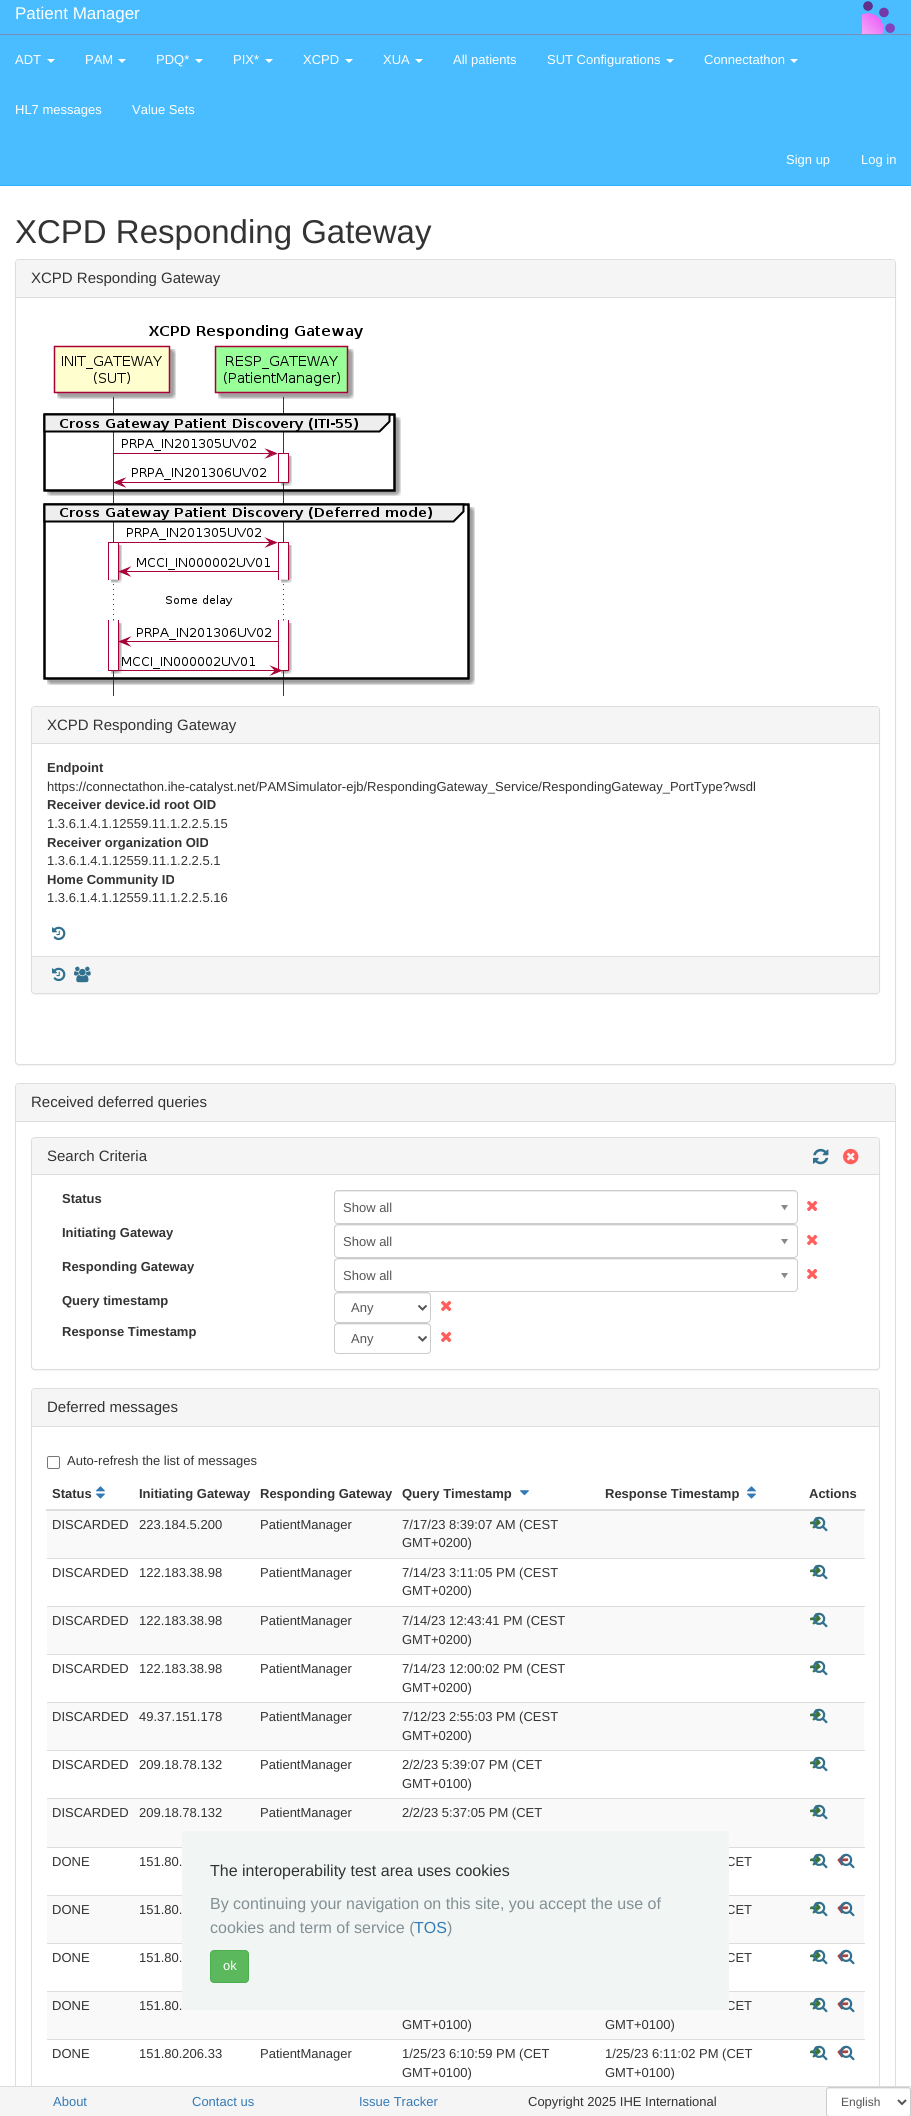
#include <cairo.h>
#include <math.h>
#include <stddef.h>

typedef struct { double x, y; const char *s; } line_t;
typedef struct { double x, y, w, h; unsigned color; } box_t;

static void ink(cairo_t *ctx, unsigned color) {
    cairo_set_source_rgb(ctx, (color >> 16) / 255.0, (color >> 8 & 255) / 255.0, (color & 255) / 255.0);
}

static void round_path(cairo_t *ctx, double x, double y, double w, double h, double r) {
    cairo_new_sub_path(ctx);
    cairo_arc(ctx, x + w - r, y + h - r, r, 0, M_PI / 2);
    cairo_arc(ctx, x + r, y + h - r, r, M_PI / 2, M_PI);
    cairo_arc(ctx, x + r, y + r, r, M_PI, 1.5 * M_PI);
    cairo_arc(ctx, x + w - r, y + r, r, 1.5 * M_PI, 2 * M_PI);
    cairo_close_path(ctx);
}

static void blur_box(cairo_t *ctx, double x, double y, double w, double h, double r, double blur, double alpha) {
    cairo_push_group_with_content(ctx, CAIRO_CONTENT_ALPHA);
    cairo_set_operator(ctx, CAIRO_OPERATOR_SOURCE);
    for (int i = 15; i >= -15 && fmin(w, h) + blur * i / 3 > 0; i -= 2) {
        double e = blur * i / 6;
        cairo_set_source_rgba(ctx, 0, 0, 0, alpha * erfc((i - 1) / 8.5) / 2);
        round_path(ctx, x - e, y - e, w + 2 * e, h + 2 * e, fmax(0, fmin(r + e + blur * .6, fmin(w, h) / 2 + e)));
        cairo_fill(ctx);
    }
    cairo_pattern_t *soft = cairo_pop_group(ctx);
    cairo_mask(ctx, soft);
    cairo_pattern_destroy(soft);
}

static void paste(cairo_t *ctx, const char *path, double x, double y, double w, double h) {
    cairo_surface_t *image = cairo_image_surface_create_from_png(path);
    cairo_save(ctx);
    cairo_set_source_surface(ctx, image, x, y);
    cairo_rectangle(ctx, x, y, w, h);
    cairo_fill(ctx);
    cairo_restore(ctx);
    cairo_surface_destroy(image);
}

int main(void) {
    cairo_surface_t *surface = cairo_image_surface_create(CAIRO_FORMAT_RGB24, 911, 2116);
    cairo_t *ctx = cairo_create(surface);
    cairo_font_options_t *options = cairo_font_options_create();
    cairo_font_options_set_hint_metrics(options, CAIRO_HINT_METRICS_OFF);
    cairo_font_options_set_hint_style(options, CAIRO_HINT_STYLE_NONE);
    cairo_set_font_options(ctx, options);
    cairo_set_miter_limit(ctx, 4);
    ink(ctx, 0xFFFFFF);
    cairo_paint(ctx);
    {
        static const box_t items[] = {
            {0, 0, 911, 185, 0x49BDFF},
            {0, 185, 911, 1, 0x28B1FF},
            {0, 34, 911, 1, 0x7C8DC5},
        };
        for (size_t i = 0; i < sizeof items / sizeof *items; i++) {
            ink(ctx, items[i].color);
            cairo_rectangle(ctx, items[i].x, items[i].y, items[i].w, items[i].h);
            cairo_fill(ctx);
        }
    }
    cairo_select_font_face(ctx, "Liberation Sans", CAIRO_FONT_SLANT_NORMAL, CAIRO_FONT_WEIGHT_NORMAL);
    cairo_set_font_size(ctx, 17);
    ink(ctx, 0xFFFFFF);
    cairo_move_to(ctx, 15, 19);
    cairo_show_text(ctx, "Patient Manager");
    paste(ctx, "media/1.png", 862, 1, 33, 33);
    cairo_set_font_size(ctx, 13);
    cairo_move_to(ctx, 15, 64);
    cairo_show_text(ctx, "ADT");
    cairo_new_path(ctx);
    cairo_move_to(ctx, 47, 59);
    cairo_line_to(ctx, 55, 59);
    cairo_line_to(ctx, 51, 63);
    cairo_close_path(ctx);
    cairo_fill(ctx);
    cairo_move_to(ctx, 85, 64);
    cairo_show_text(ctx, "PAM");
    cairo_new_path(ctx);
    cairo_move_to(ctx, 118, 59);
    cairo_line_to(ctx, 126, 59);
    cairo_line_to(ctx, 122, 63);
    cairo_close_path(ctx);
    cairo_fill(ctx);
    cairo_move_to(ctx, 156, 64);
    cairo_show_text(ctx, "PDQ*");
    cairo_new_path(ctx);
    cairo_move_to(ctx, 195, 59);
    cairo_line_to(ctx, 203, 59);
    cairo_line_to(ctx, 199, 63);
    cairo_close_path(ctx);
    cairo_fill(ctx);
    cairo_move_to(ctx, 233, 64);
    cairo_show_text(ctx, "PIX*");
    cairo_new_path(ctx);
    cairo_move_to(ctx, 265, 59);
    cairo_line_to(ctx, 273, 59);
    cairo_line_to(ctx, 269, 63);
    cairo_close_path(ctx);
    cairo_fill(ctx);
    cairo_move_to(ctx, 303, 64);
    cairo_show_text(ctx, "XCPD");
    cairo_new_path(ctx);
    cairo_move_to(ctx, 345, 59);
    cairo_line_to(ctx, 353, 59);
    cairo_line_to(ctx, 349, 63);
    cairo_close_path(ctx);
    cairo_fill(ctx);
    cairo_move_to(ctx, 383, 64);
    cairo_show_text(ctx, "XUA");
    cairo_new_path(ctx);
    cairo_move_to(ctx, 415, 59);
    cairo_line_to(ctx, 423, 59);
    cairo_line_to(ctx, 419, 63);
    cairo_close_path(ctx);
    cairo_fill(ctx);
    cairo_move_to(ctx, 453, 64);
    cairo_show_text(ctx, "All patients");
    cairo_move_to(ctx, 547, 64);
    cairo_show_text(ctx, "SUT Configurations");
    cairo_new_path(ctx);
    cairo_move_to(ctx, 666, 59);
    cairo_line_to(ctx, 674, 59);
    cairo_line_to(ctx, 670, 63);
    cairo_close_path(ctx);
    cairo_fill(ctx);
    cairo_move_to(ctx, 704, 64);
    cairo_show_text(ctx, "Connectathon");
    cairo_new_path(ctx);
    cairo_move_to(ctx, 790, 59);
    cairo_line_to(ctx, 798, 59);
    cairo_line_to(ctx, 794, 63);
    cairo_close_path(ctx);
    cairo_fill(ctx);
    {
        static const line_t items[] = {
            {15, 114, "HL7 messages"},
            {132, 114, "Value Sets"},
            {786, 164, "Sign up"},
            {861, 164, "Log in"},
        };
        for (size_t i = 0; i < sizeof items / sizeof *items; i++) {
            cairo_move_to(ctx, items[i].x, items[i].y);
            cairo_show_text(ctx, items[i].s);
        }
    }
    cairo_set_font_size(ctx, 33);
    ink(ctx, 0x333333);
    cairo_move_to(ctx, 15, 243);
    cairo_show_text(ctx, "XCPD Responding Gateway");
    ink(ctx, 0x000000);
    blur_box(ctx, 15, 260, 881, 806, 4, 0.5, 0.05);
    ink(ctx, 0xFFFFFF);
    round_path(ctx, 15.5, 259.5, 880, 805, 3.5);
    cairo_fill_preserve(ctx);
    ink(ctx, 0xDDDDDD);
    cairo_set_line_width(ctx, 1);
    cairo_stroke(ctx);
    ink(ctx, 0xF5F5F5);
    cairo_new_path(ctx);
    cairo_move_to(ctx, 19, 260);
    cairo_line_to(ctx, 892, 260);
    cairo_curve_to(ctx, 893.5, 260, 895, 261.5, 895, 263);
    cairo_line_to(ctx, 895, 298);
    cairo_line_to(ctx, 16, 298);
    cairo_line_to(ctx, 16, 263);
    cairo_curve_to(ctx, 16, 261.5, 17.5, 260, 19, 260);
    cairo_close_path(ctx);
    cairo_fill(ctx);
    ink(ctx, 0xDDDDDD);
    cairo_rectangle(ctx, 16, 297, 879, 1);
    cairo_fill(ctx);
    cairo_set_font_size(ctx, 15);
    ink(ctx, 0x333333);
    cairo_move_to(ctx, 31, 283);
    cairo_show_text(ctx, "XCPD Responding Gateway");
    paste(ctx, "media/2.png", 43, 325, 432, 371);
    ink(ctx, 0x000000);
    blur_box(ctx, 31, 707, 849, 288, 4, 0.5, 0.05);
    ink(ctx, 0xFFFFFF);
    round_path(ctx, 31.5, 706.5, 848, 287, 3.5);
    cairo_fill_preserve(ctx);
    ink(ctx, 0xDDDDDD);
    cairo_stroke(ctx);
    ink(ctx, 0xF5F5F5);
    cairo_new_path(ctx);
    cairo_move_to(ctx, 35, 707);
    cairo_line_to(ctx, 876, 707);
    cairo_curve_to(ctx, 877.5, 707, 879, 708.5, 879, 710);
    cairo_line_to(ctx, 879, 744);
    cairo_line_to(ctx, 32, 744);
    cairo_line_to(ctx, 32, 710);
    cairo_curve_to(ctx, 32, 708.5, 33.5, 707, 35, 707);
    cairo_close_path(ctx);
    cairo_fill(ctx);
    ink(ctx, 0xDDDDDD);
    cairo_rectangle(ctx, 32, 743, 847, 1);
    cairo_fill(ctx);
    ink(ctx, 0x333333);
    cairo_move_to(ctx, 47, 730);
    cairo_show_text(ctx, "XCPD Responding Gateway");
    cairo_select_font_face(ctx, "Liberation Sans", CAIRO_FONT_SLANT_NORMAL, CAIRO_FONT_WEIGHT_BOLD);
    cairo_set_font_size(ctx, 13);
    cairo_move_to(ctx, 47, 772);
    cairo_show_text(ctx, "Endpoint");
    cairo_select_font_face(ctx, "Liberation Sans", CAIRO_FONT_SLANT_NORMAL, CAIRO_FONT_WEIGHT_NORMAL);
    cairo_move_to(ctx, 47, 791);
    cairo_show_text(ctx, "https://connectathon.ihe-catalyst.net/PAMSimulator-ejb/RespondingGateway_Service/RespondingGateway_PortType?wsdl");
    cairo_select_font_face(ctx, "Liberation Sans", CAIRO_FONT_SLANT_NORMAL, CAIRO_FONT_WEIGHT_BOLD);
    cairo_move_to(ctx, 47, 809);
    cairo_show_text(ctx, "Receiver device.id root OID");
    cairo_select_font_face(ctx, "Liberation Sans", CAIRO_FONT_SLANT_NORMAL, CAIRO_FONT_WEIGHT_NORMAL);
    cairo_move_to(ctx, 47, 828);
    cairo_show_text(ctx, "1.3.6.1.4.1.12559.11.1.2.2.5.15");
    cairo_select_font_face(ctx, "Liberation Sans", CAIRO_FONT_SLANT_NORMAL, CAIRO_FONT_WEIGHT_BOLD);
    cairo_move_to(ctx, 47, 847);
    cairo_show_text(ctx, "Receiver organization OID");
    cairo_select_font_face(ctx, "Liberation Sans", CAIRO_FONT_SLANT_NORMAL, CAIRO_FONT_WEIGHT_NORMAL);
    cairo_move_to(ctx, 47, 865);
    cairo_show_text(ctx, "1.3.6.1.4.1.12559.11.1.2.2.5.1");
    cairo_select_font_face(ctx, "Liberation Sans", CAIRO_FONT_SLANT_NORMAL, CAIRO_FONT_WEIGHT_BOLD);
    cairo_move_to(ctx, 47, 884);
    cairo_show_text(ctx, "Home Community ID");
    cairo_select_font_face(ctx, "Liberation Sans", CAIRO_FONT_SLANT_NORMAL, CAIRO_FONT_WEIGHT_NORMAL);
    cairo_move_to(ctx, 47, 902);
    cairo_show_text(ctx, "1.3.6.1.4.1.12559.11.1.2.2.5.16");
    paste(ctx, "media/3.png", 52, 926, 14, 15);
    ink(ctx, 0xF5F5F5);
    cairo_new_path(ctx);
    cairo_move_to(ctx, 32, 956);
    cairo_line_to(ctx, 879, 956);
    cairo_line_to(ctx, 879, 990);
    cairo_curve_to(ctx, 879, 991.5, 877.5, 993, 876, 993);
    cairo_line_to(ctx, 35, 993);
    cairo_curve_to(ctx, 33.5, 993, 32, 991.5, 32, 990);
    cairo_close_path(ctx);
    cairo_fill(ctx);
    ink(ctx, 0xDDDDDD);
    cairo_rectangle(ctx, 32, 956, 847, 1);
    cairo_fill(ctx);
    paste(ctx, "media/4.png", 52, 967, 14, 15);
    paste(ctx, "media/5.png", 74, 966, 17, 17);
    round_path(ctx, 15.5, 1083.5, 880, 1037, 3.5);
    cairo_stroke(ctx);
    ink(ctx, 0xF5F5F5);
    cairo_new_path(ctx);
    cairo_move_to(ctx, 19, 1084);
    cairo_line_to(ctx, 892, 1084);
    cairo_curve_to(ctx, 893.5, 1084, 895, 1085.5, 895, 1087);
    cairo_line_to(ctx, 895, 1122);
    cairo_line_to(ctx, 16, 1122);
    cairo_line_to(ctx, 16, 1087);
    cairo_curve_to(ctx, 16, 1085.5, 17.5, 1084, 19, 1084);
    cairo_close_path(ctx);
    cairo_fill(ctx);
    ink(ctx, 0xDDDDDD);
    cairo_rectangle(ctx, 16, 1121, 879, 1);
    cairo_fill(ctx);
    cairo_set_font_size(ctx, 15);
    ink(ctx, 0x333333);
    cairo_move_to(ctx, 31, 1107);
    cairo_show_text(ctx, "Received deferred queries");
    ink(ctx, 0x000000);
    blur_box(ctx, 31, 1138, 849, 233, 4, 0.5, 0.05);
    ink(ctx, 0xFFFFFF);
    round_path(ctx, 31.5, 1137.5, 848, 232, 3.5);
    cairo_fill_preserve(ctx);
    ink(ctx, 0xDDDDDD);
    cairo_stroke(ctx);
    ink(ctx, 0xF5F5F5);
    cairo_new_path(ctx);
    cairo_move_to(ctx, 35, 1138);
    cairo_line_to(ctx, 876, 1138);
    cairo_curve_to(ctx, 877.5, 1138, 879, 1139.5, 879, 1141);
    cairo_line_to(ctx, 879, 1175);
    cairo_line_to(ctx, 32, 1175);
    cairo_line_to(ctx, 32, 1141);
    cairo_curve_to(ctx, 32, 1139.5, 33.5, 1138, 35, 1138);
    cairo_close_path(ctx);
    cairo_fill(ctx);
    ink(ctx, 0xDDDDDD);
    cairo_rectangle(ctx, 32, 1174, 847, 1);
    cairo_fill(ctx);
    ink(ctx, 0x333333);
    cairo_move_to(ctx, 47, 1161);
    cairo_show_text(ctx, "Search Criteria");
    paste(ctx, "media/6.png", 813, 1148, 16, 17);
    paste(ctx, "media/7.png", 843, 1148, 16, 17);
    cairo_select_font_face(ctx, "Liberation Sans", CAIRO_FONT_SLANT_NORMAL, CAIRO_FONT_WEIGHT_BOLD);
    cairo_set_font_size(ctx, 13);
    cairo_move_to(ctx, 62, 1203);
    cairo_show_text(ctx, "Status");
    ink(ctx, 0xECECEC);
    cairo_new_path(ctx);
    cairo_move_to(ctx, 338, 1192);
    cairo_line_to(ctx, 794, 1192);
    cairo_curve_to(ctx, 796, 1192, 797, 1193, 797, 1195);
    cairo_curve_to(ctx, 797, 1193, 796, 1191, 794, 1191);
    cairo_line_to(ctx, 337, 1191);
    cairo_line_to(ctx, 335, 1193);
    cairo_line_to(ctx, 335, 1195);
    cairo_curve_to(ctx, 335, 1193, 336, 1192, 338, 1192);
    cairo_close_path(ctx);
    cairo_fill(ctx);
    round_path(ctx, 334.5, 1190.5, 463, 33, 3.5);
    ink(ctx, 0xCCCCCC);
    cairo_stroke(ctx);
    cairo_select_font_face(ctx, "Liberation Sans", CAIRO_FONT_SLANT_NORMAL, CAIRO_FONT_WEIGHT_NORMAL);
    ink(ctx, 0x555555);
    cairo_move_to(ctx, 343, 1212);
    cairo_show_text(ctx, "Show all");
    paste(ctx, "media/8.png", 781, 1205, 7, 6);
    paste(ctx, "media/9.png", 807, 1200, 11, 12);
    cairo_select_font_face(ctx, "Liberation Sans", CAIRO_FONT_SLANT_NORMAL, CAIRO_FONT_WEIGHT_BOLD);
    ink(ctx, 0x333333);
    cairo_move_to(ctx, 62, 1237);
    cairo_show_text(ctx, "Initiating Gateway");
    ink(ctx, 0xECECEC);
    cairo_new_path(ctx);
    cairo_move_to(ctx, 338, 1226);
    cairo_line_to(ctx, 794, 1226);
    cairo_curve_to(ctx, 796, 1226, 797, 1227, 797, 1229);
    cairo_curve_to(ctx, 797, 1227, 796, 1225, 794, 1225);
    cairo_line_to(ctx, 337, 1225);
    cairo_line_to(ctx, 335, 1227);
    cairo_line_to(ctx, 335, 1229);
    cairo_curve_to(ctx, 335, 1227, 336, 1226, 338, 1226);
    cairo_close_path(ctx);
    cairo_fill(ctx);
    round_path(ctx, 334.5, 1224.5, 463, 33, 3.5);
    ink(ctx, 0xCCCCCC);
    cairo_stroke(ctx);
    cairo_select_font_face(ctx, "Liberation Sans", CAIRO_FONT_SLANT_NORMAL, CAIRO_FONT_WEIGHT_NORMAL);
    ink(ctx, 0x555555);
    cairo_move_to(ctx, 343, 1246);
    cairo_show_text(ctx, "Show all");
    paste(ctx, "media/8.png", 781, 1239, 7, 6);
    paste(ctx, "media/9.png", 807, 1234, 11, 12);
    cairo_select_font_face(ctx, "Liberation Sans", CAIRO_FONT_SLANT_NORMAL, CAIRO_FONT_WEIGHT_BOLD);
    ink(ctx, 0x333333);
    cairo_move_to(ctx, 62, 1271);
    cairo_show_text(ctx, "Responding Gateway");
    ink(ctx, 0xECECEC);
    cairo_new_path(ctx);
    cairo_move_to(ctx, 338, 1260);
    cairo_line_to(ctx, 794, 1260);
    cairo_curve_to(ctx, 796, 1260, 797, 1261, 797, 1263);
    cairo_curve_to(ctx, 797, 1261, 796, 1259, 794, 1259);
    cairo_line_to(ctx, 337, 1259);
    cairo_line_to(ctx, 335, 1261);
    cairo_line_to(ctx, 335, 1263);
    cairo_curve_to(ctx, 335, 1261, 336, 1260, 338, 1260);
    cairo_close_path(ctx);
    cairo_fill(ctx);
    round_path(ctx, 334.5, 1258.5, 463, 33, 3.5);
    ink(ctx, 0xCCCCCC);
    cairo_stroke(ctx);
    cairo_select_font_face(ctx, "Liberation Sans", CAIRO_FONT_SLANT_NORMAL, CAIRO_FONT_WEIGHT_NORMAL);
    ink(ctx, 0x555555);
    cairo_move_to(ctx, 343, 1280);
    cairo_show_text(ctx, "Show all");
    paste(ctx, "media/8.png", 781, 1273, 7, 6);
    paste(ctx, "media/9.png", 807, 1268, 11, 12);
    cairo_select_font_face(ctx, "Liberation Sans", CAIRO_FONT_SLANT_NORMAL, CAIRO_FONT_WEIGHT_BOLD);
    ink(ctx, 0x333333);
    cairo_move_to(ctx, 62, 1305);
    cairo_show_text(ctx, "Query timestamp");
    ink(ctx, 0xECECEC);
    cairo_new_path(ctx);
    cairo_move_to(ctx, 338, 1294);
    cairo_line_to(ctx, 427, 1294);
    cairo_curve_to(ctx, 429, 1294, 430, 1295, 430, 1297);
    cairo_curve_to(ctx, 430, 1289, 415, 1293, 412, 1293);
    cairo_line_to(ctx, 353, 1293);
    cairo_curve_to(ctx, 350, 1293, 335, 1289, 335, 1297);
    cairo_curve_to(ctx, 335, 1295, 336, 1294, 338, 1294);
    cairo_close_path(ctx);
    cairo_fill(ctx);
    round_path(ctx, 334.5, 1292.5, 96, 30, 3.5);
    ink(ctx, 0xCCCCCC);
    cairo_stroke(ctx);
    cairo_new_path(ctx);
    cairo_move_to(ctx, 418.5, 1305.5);
    cairo_line_to(ctx, 422.5, 1309.5);
    cairo_line_to(ctx, 426.5, 1305.5);
    ink(ctx, 0x555555);
    cairo_set_line_width(ctx, 2);
    cairo_stroke(ctx);
    cairo_select_font_face(ctx, "Liberation Sans", CAIRO_FONT_SLANT_NORMAL, CAIRO_FONT_WEIGHT_NORMAL);
    cairo_move_to(ctx, 351, 1312);
    cairo_show_text(ctx, "Any");
    paste(ctx, "media/9.png", 441, 1300, 11, 12);
    cairo_select_font_face(ctx, "Liberation Sans", CAIRO_FONT_SLANT_NORMAL, CAIRO_FONT_WEIGHT_BOLD);
    ink(ctx, 0x333333);
    cairo_move_to(ctx, 62, 1336);
    cairo_show_text(ctx, "Response Timestamp");
    ink(ctx, 0xECECEC);
    cairo_new_path(ctx);
    cairo_move_to(ctx, 338, 1325);
    cairo_line_to(ctx, 427, 1325);
    cairo_curve_to(ctx, 429, 1325, 430, 1326, 430, 1328);
    cairo_curve_to(ctx, 430, 1320, 415, 1324, 412, 1324);
    cairo_line_to(ctx, 353, 1324);
    cairo_curve_to(ctx, 350, 1324, 335, 1320, 335, 1328);
    cairo_curve_to(ctx, 335, 1326, 336, 1325, 338, 1325);
    cairo_close_path(ctx);
    cairo_fill(ctx);
    round_path(ctx, 334.5, 1323.5, 96, 30, 3.5);
    ink(ctx, 0xCCCCCC);
    cairo_set_line_width(ctx, 1);
    cairo_stroke(ctx);
    cairo_new_path(ctx);
    cairo_move_to(ctx, 418.5, 1336.5);
    cairo_line_to(ctx, 422.5, 1340.5);
    cairo_line_to(ctx, 426.5, 1336.5);
    ink(ctx, 0x555555);
    cairo_set_line_width(ctx, 2);
    cairo_stroke(ctx);
    cairo_select_font_face(ctx, "Liberation Sans", CAIRO_FONT_SLANT_NORMAL, CAIRO_FONT_WEIGHT_NORMAL);
    cairo_move_to(ctx, 351, 1343);
    cairo_show_text(ctx, "Any");
    paste(ctx, "media/9.png", 441, 1331, 11, 12);
    round_path(ctx, 31.5, 1388.5, 848, 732, 3.5);
    ink(ctx, 0xDDDDDD);
    cairo_set_line_width(ctx, 1);
    cairo_stroke(ctx);
    ink(ctx, 0xF5F5F5);
    cairo_new_path(ctx);
    cairo_move_to(ctx, 35, 1389);
    cairo_line_to(ctx, 876, 1389);
    cairo_curve_to(ctx, 877.5, 1389, 879, 1390.5, 879, 1392);
    cairo_line_to(ctx, 879, 1427);
    cairo_line_to(ctx, 32, 1427);
    cairo_line_to(ctx, 32, 1392);
    cairo_curve_to(ctx, 32, 1390.5, 33.5, 1389, 35, 1389);
    cairo_close_path(ctx);
    cairo_fill(ctx);
    ink(ctx, 0xDDDDDD);
    cairo_rectangle(ctx, 32, 1426, 847, 1);
    cairo_fill(ctx);
    cairo_set_font_size(ctx, 15);
    ink(ctx, 0x333333);
    cairo_move_to(ctx, 47, 1412);
    cairo_show_text(ctx, "Deferred messages");
    round_path(ctx, 47.5, 1456.5, 12, 12, 1.5);
    ink(ctx, 0x767676);
    cairo_stroke(ctx);
    cairo_set_font_size(ctx, 13);
    ink(ctx, 0x333333);
    cairo_move_to(ctx, 67, 1465);
    cairo_show_text(ctx, "Auto-refresh the list of messages");
    cairo_select_font_face(ctx, "Liberation Sans", CAIRO_FONT_SLANT_NORMAL, CAIRO_FONT_WEIGHT_BOLD);
    cairo_move_to(ctx, 52, 1498);
    cairo_show_text(ctx, "Status");
    paste(ctx, "media/10.png", 96, 1486, 9, 13);
    {
        static const line_t items[] = {
            {139, 1498, "Initiating Gateway"},
            {260, 1498, "Responding Gateway"},
            {402, 1498, "Query Timestamp"},
        };
        for (size_t i = 0; i < sizeof items / sizeof *items; i++) {
            cairo_move_to(ctx, items[i].x, items[i].y);
            cairo_show_text(ctx, items[i].s);
        }
    }
    paste(ctx, "media/11.png", 520, 1490, 9, 6);
    cairo_move_to(ctx, 605, 1498);
    cairo_show_text(ctx, "Response Timestamp");
    paste(ctx, "media/10.png", 747, 1486, 9, 13);
    ink(ctx, 0xDDDDDD);
    cairo_rectangle(ctx, 46, 1509, 819, 2);
    cairo_fill(ctx);
    ink(ctx, 0x333333);
    cairo_move_to(ctx, 809, 1498);
    cairo_show_text(ctx, "Actions");
    ink(ctx, 0xF9F9F9);
    cairo_rectangle(ctx, 47, 1511, 817, 47);
    cairo_fill(ctx);
    cairo_select_font_face(ctx, "Liberation Sans", CAIRO_FONT_SLANT_NORMAL, CAIRO_FONT_WEIGHT_NORMAL);
    ink(ctx, 0x333333);
    {
        static const line_t items[] = {
            {52, 1529, "DISCARDED"},
            {139, 1529, "223.184.5.200"},
            {260, 1529, "PatientManager"},
            {402, 1529, "7/17/23 8:39:07 AM (CEST"},
            {402, 1547, "GMT+0200)"},
        };
        for (size_t i = 0; i < sizeof items / sizeof *items; i++) {
            cairo_move_to(ctx, items[i].x, items[i].y);
            cairo_show_text(ctx, items[i].s);
        }
    }
    paste(ctx, "media/13.png", 809, 1517, 12, 12);
    paste(ctx, "media/12.png", 813, 1516, 15, 16);
    ink(ctx, 0xDDDDDD);
    cairo_rectangle(ctx, 47, 1558, 818, 1);
    cairo_fill(ctx);
    paste(ctx, "media/15.png", 809, 1565, 12, 12);
    paste(ctx, "media/14.png", 813, 1564, 15, 16);
    ink(ctx, 0x333333);
    {
        static const line_t items[] = {
            {52, 1577, "DISCARDED"},
            {139, 1577, "122.183.38.98"},
            {260, 1577, "PatientManager"},
            {402, 1577, "7/14/23 3:11:05 PM (CEST"},
            {402, 1595, "GMT+0200)"},
        };
        for (size_t i = 0; i < sizeof items / sizeof *items; i++) {
            cairo_move_to(ctx, items[i].x, items[i].y);
            cairo_show_text(ctx, items[i].s);
        }
    }
    ink(ctx, 0xF9F9F9);
    cairo_rectangle(ctx, 47, 1607, 817, 47);
    cairo_fill(ctx);
    ink(ctx, 0xDDDDDD);
    cairo_rectangle(ctx, 47, 1606, 818, 1);
    cairo_fill(ctx);
    paste(ctx, "media/13.png", 809, 1613, 12, 12);
    paste(ctx, "media/12.png", 813, 1612, 15, 16);
    ink(ctx, 0x333333);
    {
        static const line_t items[] = {
            {52, 1625, "DISCARDED"},
            {139, 1625, "122.183.38.98"},
            {260, 1625, "PatientManager"},
            {402, 1625, "7/14/23 12:43:41 PM (CEST"},
            {402, 1644, "GMT+0200)"},
        };
        for (size_t i = 0; i < sizeof items / sizeof *items; i++) {
            cairo_move_to(ctx, items[i].x, items[i].y);
            cairo_show_text(ctx, items[i].s);
        }
    }
    ink(ctx, 0xDDDDDD);
    cairo_rectangle(ctx, 47, 1654, 818, 1);
    cairo_fill(ctx);
    paste(ctx, "media/15.png", 809, 1661, 12, 12);
    paste(ctx, "media/14.png", 813, 1660, 15, 16);
    ink(ctx, 0x333333);
    {
        static const line_t items[] = {
            {52, 1673, "DISCARDED"},
            {139, 1673, "122.183.38.98"},
            {260, 1673, "PatientManager"},
            {402, 1673, "7/14/23 12:00:02 PM (CEST"},
            {402, 1692, "GMT+0200)"},
        };
        for (size_t i = 0; i < sizeof items / sizeof *items; i++) {
            cairo_move_to(ctx, items[i].x, items[i].y);
            cairo_show_text(ctx, items[i].s);
        }
    }
    ink(ctx, 0xF9F9F9);
    cairo_rectangle(ctx, 47, 1703, 817, 47);
    cairo_fill(ctx);
    ink(ctx, 0xDDDDDD);
    cairo_rectangle(ctx, 47, 1702, 818, 1);
    cairo_fill(ctx);
    paste(ctx, "media/13.png", 809, 1709, 12, 12);
    paste(ctx, "media/12.png", 813, 1708, 15, 16);
    ink(ctx, 0x333333);
    {
        static const line_t items[] = {
            {52, 1721, "DISCARDED"},
            {139, 1721, "49.37.151.178"},
            {260, 1721, "PatientManager"},
            {402, 1721, "7/12/23 2:55:03 PM (CEST"},
            {402, 1740, "GMT+0200)"},
        };
        for (size_t i = 0; i < sizeof items / sizeof *items; i++) {
            cairo_move_to(ctx, items[i].x, items[i].y);
            cairo_show_text(ctx, items[i].s);
        }
    }
    ink(ctx, 0xDDDDDD);
    cairo_rectangle(ctx, 47, 1750, 818, 1);
    cairo_fill(ctx);
    paste(ctx, "media/15.png", 809, 1757, 12, 12);
    paste(ctx, "media/14.png", 813, 1756, 15, 16);
    ink(ctx, 0x333333);
    {
        static const line_t items[] = {
            {52, 1769, "DISCARDED"},
            {139, 1769, "209.18.78.132"},
            {260, 1769, "PatientManager"},
            {402, 1769, "2/2/23 5:39:07 PM (CET"},
            {402, 1788, "GMT+0100)"},
        };
        for (size_t i = 0; i < sizeof items / sizeof *items; i++) {
            cairo_move_to(ctx, items[i].x, items[i].y);
            cairo_show_text(ctx, items[i].s);
        }
    }
    ink(ctx, 0xF9F9F9);
    cairo_rectangle(ctx, 47, 1799, 817, 48);
    cairo_fill(ctx);
    ink(ctx, 0xDDDDDD);
    cairo_rectangle(ctx, 47, 1798, 818, 1);
    cairo_fill(ctx);
    paste(ctx, "media/13.png", 809, 1805, 12, 12);
    paste(ctx, "media/12.png", 813, 1804, 15, 16);
    ink(ctx, 0x333333);
    {
        static const line_t items[] = {
            {52, 1817, "DISCARDED"},
            {139, 1817, "209.18.78.132"},
            {260, 1817, "PatientManager"},
            {402, 1817, "2/2/23 5:37:05 PM (CET"},
            {52, 1866, "DONE"},
        };
        for (size_t i = 0; i < sizeof items / sizeof *items; i++) {
            cairo_move_to(ctx, items[i].x, items[i].y);
            cairo_show_text(ctx, items[i].s);
        }
    }
    ink(ctx, 0xDDDDDD);
    cairo_rectangle(ctx, 47, 1847, 135, 1);
    cairo_fill(ctx);
    ink(ctx, 0x333333);
    cairo_move_to(ctx, 139, 1866);
    cairo_show_text(ctx, "151.80.");
    ink(ctx, 0xDDDDDD);
    cairo_rectangle(ctx, 729, 1847, 136, 1);
    cairo_fill(ctx);
    paste(ctx, "media/15.png", 809, 1854, 12, 12);
    paste(ctx, "media/14.png", 813, 1853, 15, 16);
    paste(ctx, "media/17.png", 837, 1854, 12, 12);
    paste(ctx, "media/16.png", 840, 1853, 15, 16);
    ink(ctx, 0x333333);
    cairo_move_to(ctx, 726, 1866);
    cairo_show_text(ctx, "CET");
    ink(ctx, 0xF9F9F9);
    cairo_rectangle(ctx, 47, 1896, 817, 47);
    cairo_fill(ctx);
    ink(ctx, 0x333333);
    cairo_move_to(ctx, 52, 1914);
    cairo_show_text(ctx, "DONE");
    ink(ctx, 0xDDDDDD);
    cairo_rectangle(ctx, 47, 1895, 135, 1);
    cairo_fill(ctx);
    ink(ctx, 0x333333);
    cairo_move_to(ctx, 139, 1914);
    cairo_show_text(ctx, "151.80.");
    ink(ctx, 0xDDDDDD);
    cairo_rectangle(ctx, 729, 1895, 136, 1);
    cairo_fill(ctx);
    paste(ctx, "media/13.png", 809, 1902, 12, 12);
    paste(ctx, "media/12.png", 813, 1901, 15, 16);
    paste(ctx, "media/19.png", 837, 1902, 12, 12);
    paste(ctx, "media/18.png", 840, 1901, 15, 16);
    ink(ctx, 0x333333);
    cairo_move_to(ctx, 726, 1914);
    cairo_show_text(ctx, "CET");
    cairo_move_to(ctx, 52, 1962);
    cairo_show_text(ctx, "DONE");
    ink(ctx, 0xDDDDDD);
    cairo_rectangle(ctx, 47, 1943, 135, 1);
    cairo_fill(ctx);
    ink(ctx, 0x333333);
    cairo_move_to(ctx, 139, 1962);
    cairo_show_text(ctx, "151.80.");
    ink(ctx, 0xDDDDDD);
    cairo_rectangle(ctx, 729, 1943, 136, 1);
    cairo_fill(ctx);
    paste(ctx, "media/15.png", 809, 1950, 12, 12);
    paste(ctx, "media/14.png", 813, 1949, 15, 16);
    paste(ctx, "media/17.png", 837, 1950, 12, 12);
    paste(ctx, "media/16.png", 840, 1949, 15, 16);
    ink(ctx, 0x333333);
    cairo_move_to(ctx, 726, 1962);
    cairo_show_text(ctx, "CET");
    ink(ctx, 0xF9F9F9);
    cairo_rectangle(ctx, 47, 1992, 817, 47);
    cairo_fill(ctx);
    ink(ctx, 0x333333);
    cairo_move_to(ctx, 52, 2010);
    cairo_show_text(ctx, "DONE");
    ink(ctx, 0xDDDDDD);
    cairo_rectangle(ctx, 47, 1991, 135, 1);
    cairo_fill(ctx);
    ink(ctx, 0x333333);
    {
        static const line_t items[] = {
            {139, 2010, "151.80."},
            {402, 2029, "GMT+0100)"},
            {726, 2010, "CET"},
            {605, 2029, "GMT+0100)"},
        };
        for (size_t i = 0; i < sizeof items / sizeof *items; i++) {
            cairo_move_to(ctx, items[i].x, items[i].y);
            cairo_show_text(ctx, items[i].s);
        }
    }
    ink(ctx, 0xDDDDDD);
    cairo_rectangle(ctx, 729, 1991, 136, 1);
    cairo_fill(ctx);
    paste(ctx, "media/13.png", 809, 1998, 12, 12);
    paste(ctx, "media/12.png", 813, 1997, 15, 16);
    paste(ctx, "media/19.png", 837, 1998, 12, 12);
    paste(ctx, "media/18.png", 840, 1997, 15, 16);
    cairo_rectangle(ctx, 47, 2039, 818, 1);
    cairo_fill(ctx);
    paste(ctx, "media/15.png", 809, 2046, 12, 12);
    paste(ctx, "media/14.png", 813, 2045, 15, 16);
    paste(ctx, "media/17.png", 837, 2046, 12, 12);
    paste(ctx, "media/16.png", 840, 2045, 15, 16);
    ink(ctx, 0x333333);
    {
        static const line_t items[] = {
            {52, 2058, "DONE"},
            {139, 2058, "151.80.206.33"},
            {260, 2058, "PatientManager"},
            {402, 2058, "1/25/23 6:10:59 PM (CET"},
            {402, 2077, "GMT+0100)"},
            {605, 2058, "1/25/23 6:11:02 PM (CET"},
            {605, 2077, "GMT+0100)"},
        };
        for (size_t i = 0; i < sizeof items / sizeof *items; i++) {
            cairo_move_to(ctx, items[i].x, items[i].y);
            cairo_show_text(ctx, items[i].s);
        }
    }
    ink(ctx, 0xF1F6F4);
    cairo_rectangle(ctx, 182, 1831, 547, 179);
    cairo_fill(ctx);
    cairo_set_font_size(ctx, 16);
    ink(ctx, 0x333333);
    cairo_move_to(ctx, 210, 1876);
    cairo_show_text(ctx, "The interoperability test area uses cookies");
    ink(ctx, 0x838F93);
    cairo_move_to(ctx, 210, 1909);
    cairo_show_text(ctx, "By continuing your navigation on this site, you accept the use of");
    cairo_move_to(ctx, 210, 1933);
    cairo_show_text(ctx, "cookies and term of service (");
    ink(ctx, 0x337AB7);
    cairo_move_to(ctx, 414, 1933);
    cairo_show_text(ctx, "TOS");
    ink(ctx, 0x838F93);
    cairo_move_to(ctx, 447, 1933);
    cairo_show_text(ctx, ")");
    ink(ctx, 0x5CB85C);
    round_path(ctx, 210.5, 1950.5, 38, 32, 3.5);
    cairo_fill_preserve(ctx);
    ink(ctx, 0x4CAE4C);
    cairo_stroke(ctx);
    cairo_set_font_size(ctx, 13);
    ink(ctx, 0xFFFFFF);
    cairo_move_to(ctx, 223, 1970);
    cairo_show_text(ctx, "ok");
    ink(ctx, 0xF5F5F5);
    cairo_rectangle(ctx, 0, 2087, 911, 29);
    cairo_fill(ctx);
    ink(ctx, 0xDDDDDD);
    cairo_rectangle(ctx, 0, 2086, 911, 1);
    cairo_fill(ctx);
    ink(ctx, 0x337AB7);
    {
        static const line_t items[] = {
            {53, 2106, "About"},
            {192, 2106, "Contact us"},
            {359, 2106, "Issue Tracker"},
        };
        for (size_t i = 0; i < sizeof items / sizeof *items; i++) {
            cairo_move_to(ctx, items[i].x, items[i].y);
            cairo_show_text(ctx, items[i].s);
        }
    }
    ink(ctx, 0x333333);
    cairo_move_to(ctx, 528, 2106);
    cairo_show_text(ctx, "Copyright 2025 IHE International");
    ink(ctx, 0xFFFFFF);
    round_path(ctx, 826, 2087, 85, 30, 3);
    cairo_fill(ctx);
    ink(ctx, 0xECECEC);
    cairo_new_path(ctx);
    cairo_move_to(ctx, 829, 2089);
    cairo_line_to(ctx, 908, 2089);
    cairo_curve_to(ctx, 909, 2089, 910, 2090, 910, 2091);
    cairo_curve_to(ctx, 910, 2084, 898, 2088, 895, 2088);
    cairo_line_to(ctx, 842, 2088);
    cairo_curve_to(ctx, 839, 2088, 827, 2084, 827, 2091);
    cairo_curve_to(ctx, 827, 2090, 828, 2089, 829, 2089);
    cairo_close_path(ctx);
    cairo_fill(ctx);
    round_path(ctx, 826.5, 2087.5, 84, 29, 2.5);
    ink(ctx, 0xCCCCCC);
    cairo_stroke(ctx);
    cairo_new_path(ctx);
    cairo_move_to(ctx, 898, 2100);
    cairo_line_to(ctx, 902, 2104);
    cairo_line_to(ctx, 906, 2100);
    ink(ctx, 0x555555);
    cairo_set_line_width(ctx, 2);
    cairo_stroke(ctx);
    cairo_set_font_size(ctx, 12);
    cairo_move_to(ctx, 841, 2106);
    cairo_show_text(ctx, "English");
    cairo_surface_write_to_png(surface, "image.png");
    cairo_font_options_destroy(options);
    cairo_destroy(ctx);
    cairo_surface_destroy(surface);
    return 0;
}
